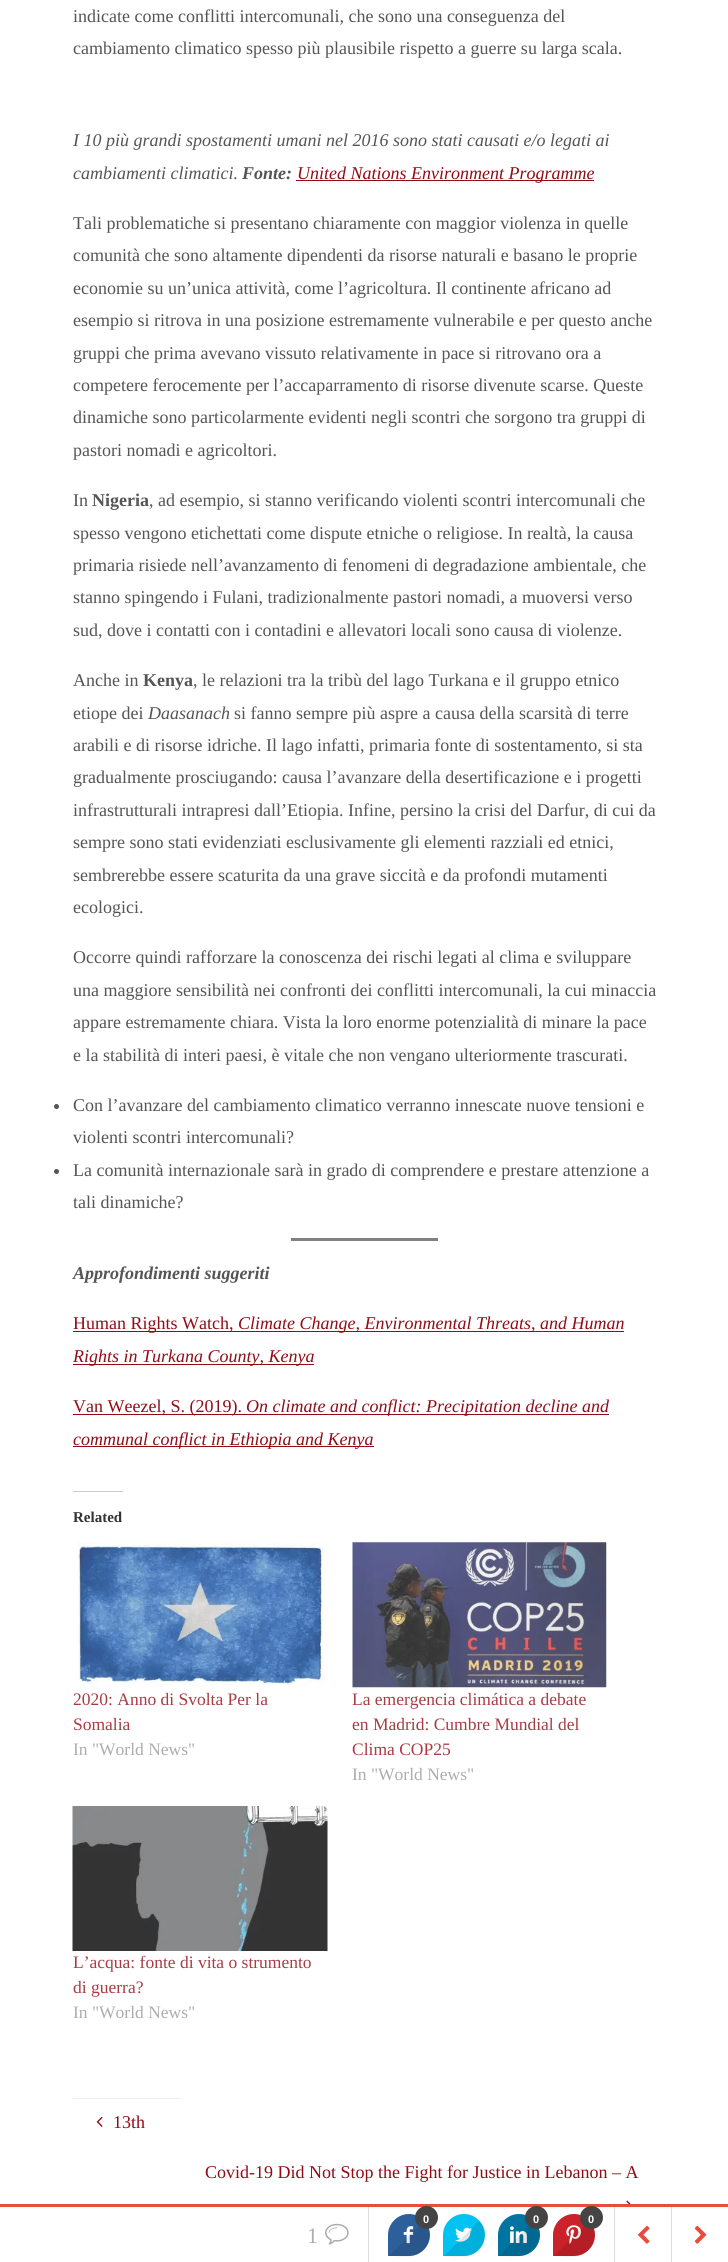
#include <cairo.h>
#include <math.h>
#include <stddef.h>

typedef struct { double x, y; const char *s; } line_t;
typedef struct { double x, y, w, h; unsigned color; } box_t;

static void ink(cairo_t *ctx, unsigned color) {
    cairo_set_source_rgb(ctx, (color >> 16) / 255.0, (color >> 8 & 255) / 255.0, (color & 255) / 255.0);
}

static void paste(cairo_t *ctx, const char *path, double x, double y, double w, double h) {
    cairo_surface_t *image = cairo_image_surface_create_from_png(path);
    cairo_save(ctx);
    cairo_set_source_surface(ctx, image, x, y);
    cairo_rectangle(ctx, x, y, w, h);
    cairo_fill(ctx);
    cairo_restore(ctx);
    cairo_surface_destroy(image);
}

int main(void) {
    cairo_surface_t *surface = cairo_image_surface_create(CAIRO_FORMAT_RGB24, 728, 2262);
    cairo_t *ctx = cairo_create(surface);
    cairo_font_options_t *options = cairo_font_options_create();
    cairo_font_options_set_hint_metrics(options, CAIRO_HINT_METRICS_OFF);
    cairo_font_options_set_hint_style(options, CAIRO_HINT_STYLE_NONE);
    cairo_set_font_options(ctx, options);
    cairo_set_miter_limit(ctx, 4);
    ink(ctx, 0xFFFFFF);
    cairo_paint(ctx);
    cairo_select_font_face(ctx, "Liberation Serif", CAIRO_FONT_SLANT_NORMAL, CAIRO_FONT_WEIGHT_NORMAL);
    cairo_set_font_size(ctx, 18);
    ink(ctx, 0x555555);
    cairo_move_to(ctx, 73, 22);
    cairo_show_text(ctx, "indicate come conflitti intercomunali, che sono una conseguenza del");
    cairo_move_to(ctx, 73, 54);
    cairo_show_text(ctx, "cambiamento climatico spesso più plausibile rispetto a guerre su larga scala.");
    cairo_select_font_face(ctx, "Liberation Serif", CAIRO_FONT_SLANT_ITALIC, CAIRO_FONT_WEIGHT_NORMAL);
    cairo_move_to(ctx, 73, 146);
    cairo_show_text(ctx, "I 10 più grandi spostamenti umani nel 2016 sono stati causati e/o legati ai");
    cairo_move_to(ctx, 73, 179);
    cairo_show_text(ctx, "cambiamenti climatici.");
    cairo_select_font_face(ctx, "Liberation Serif", CAIRO_FONT_SLANT_ITALIC, CAIRO_FONT_WEIGHT_BOLD);
    cairo_move_to(ctx, 242, 179);
    cairo_show_text(ctx, "Fonte:");
    ink(ctx, 0x920B17);
    cairo_rectangle(ctx, 296, 180, 298, 1);
    cairo_fill(ctx);
    cairo_select_font_face(ctx, "Liberation Serif", CAIRO_FONT_SLANT_ITALIC, CAIRO_FONT_WEIGHT_NORMAL);
    cairo_move_to(ctx, 297, 179);
    cairo_show_text(ctx, "United Nations Environment Programme");
    cairo_select_font_face(ctx, "Liberation Serif", CAIRO_FONT_SLANT_NORMAL, CAIRO_FONT_WEIGHT_NORMAL);
    ink(ctx, 0x555555);
    {
        static const line_t items[] = {
            {73, 229, "Tali problematiche si presentano chiaramente con maggior violenza in quelle"},
            {73, 261, "comunità che sono altamente dipendenti da risorse naturali e basano le proprie"},
            {73, 294, "economie su un’unica attività, come l’agricoltura. Il continente africano ad"},
            {73, 326, "esempio si ritrova in una posizione estremamente vulnerabile e per questo anche"},
            {73, 359, "gruppi che prima avevano vissuto relativamente in pace si ritrovano ora a"},
            {73, 391, "competere ferocemente per l’accaparramento di risorse divenute scarse. Queste"},
            {73, 423, "dinamiche sono particolarmente evidenti negli scontri che sorgono tra gruppi di"},
            {73, 456, "pastori nomadi e agricoltori."},
            {73, 506, "In"},
        };
        for (size_t i = 0; i < sizeof items / sizeof *items; i++) {
            cairo_move_to(ctx, items[i].x, items[i].y);
            cairo_show_text(ctx, items[i].s);
        }
    }
    cairo_select_font_face(ctx, "Liberation Serif", CAIRO_FONT_SLANT_NORMAL, CAIRO_FONT_WEIGHT_BOLD);
    cairo_move_to(ctx, 92, 506);
    cairo_show_text(ctx, "Nigeria");
    cairo_select_font_face(ctx, "Liberation Serif", CAIRO_FONT_SLANT_NORMAL, CAIRO_FONT_WEIGHT_NORMAL);
    {
        static const line_t items[] = {
            {149, 506, ", ad esempio, si stanno verificando violenti scontri intercomunali che"},
            {73, 539, "spesso vengono etichettati come dispute etniche o religiose. In realtà, la causa"},
            {73, 571, "primaria risiede nell’avanzamento di fenomeni di degradazione ambientale, che"},
            {73, 603, "stanno spingendo i Fulani, tradizionalmente pastori nomadi, a muoversi verso"},
            {73, 636, "sud, dove i contatti con i contadini e allevatori locali sono causa di violenze."},
            {73, 686, "Anche in"},
        };
        for (size_t i = 0; i < sizeof items / sizeof *items; i++) {
            cairo_move_to(ctx, items[i].x, items[i].y);
            cairo_show_text(ctx, items[i].s);
        }
    }
    cairo_select_font_face(ctx, "Liberation Serif", CAIRO_FONT_SLANT_NORMAL, CAIRO_FONT_WEIGHT_BOLD);
    cairo_move_to(ctx, 143, 686);
    cairo_show_text(ctx, "Kenya");
    cairo_select_font_face(ctx, "Liberation Serif", CAIRO_FONT_SLANT_NORMAL, CAIRO_FONT_WEIGHT_NORMAL);
    cairo_move_to(ctx, 193, 686);
    cairo_show_text(ctx, ", le relazioni tra la tribù del lago Turkana e il gruppo etnico");
    cairo_move_to(ctx, 73, 719);
    cairo_show_text(ctx, "etiope dei");
    cairo_select_font_face(ctx, "Liberation Serif", CAIRO_FONT_SLANT_ITALIC, CAIRO_FONT_WEIGHT_NORMAL);
    cairo_move_to(ctx, 148, 719);
    cairo_show_text(ctx, "Daasanach");
    cairo_select_font_face(ctx, "Liberation Serif", CAIRO_FONT_SLANT_NORMAL, CAIRO_FONT_WEIGHT_NORMAL);
    {
        static const line_t items[] = {
            {234, 719, "si fanno sempre più aspre a causa della scarsità di terre"},
            {73, 751, "arabili e di risorse idriche. Il lago infatti, primaria fonte di sostentamento, si sta"},
            {73, 783, "gradualmente prosciugando: causa l’avanzare della desertificazione e i progetti"},
            {73, 816, "infrastrutturali intrapresi dall’Etiopia. Infine, persino la crisi del Darfur, di cui da"},
            {73, 848, "sempre sono stati evidenziati esclusivamente gli elementi razziali ed etnici,"},
            {73, 881, "sembrerebbe essere scaturita da una grave siccità e da profondi mutamenti"},
            {73, 913, "ecologici."},
            {73, 963, "Occorre quindi rafforzare la conoscenza dei rischi legati al clima e sviluppare"},
            {73, 996, "una maggiore sensibilità nei confronti dei conflitti intercomunali, la cui minaccia"},
            {73, 1028, "appare estremamente chiara. Vista la loro enorme potenzialità di minare la pace"},
            {73, 1061, "e la stabilità di interi paesi, è vitale che non vengano ulteriormente trascurati."},
        };
        for (size_t i = 0; i < sizeof items / sizeof *items; i++) {
            cairo_move_to(ctx, items[i].x, items[i].y);
            cairo_show_text(ctx, items[i].s);
        }
    }
    cairo_new_path(ctx);
    cairo_arc(ctx, 56.5, 1106.5, 2.5, 0, 2 * M_PI);
    cairo_fill(ctx);
    cairo_move_to(ctx, 73, 1111);
    cairo_show_text(ctx, "Con l’avanzare del cambiamento climatico verranno innescate nuove tensioni e");
    cairo_move_to(ctx, 73, 1143);
    cairo_show_text(ctx, "violenti scontri intercomunali?");
    cairo_new_path(ctx);
    cairo_arc(ctx, 56.5, 1171.5, 2.5, 0, 2 * M_PI);
    cairo_fill(ctx);
    cairo_move_to(ctx, 73, 1176);
    cairo_show_text(ctx, "La comunità internazionale sarà in grado di comprendere e prestare attenzione a");
    cairo_move_to(ctx, 73, 1208);
    cairo_show_text(ctx, "tali dinamiche?");
    ink(ctx, 0x808080);
    cairo_rectangle(ctx, 291, 1238, 147, 3);
    cairo_fill(ctx);
    cairo_select_font_face(ctx, "Liberation Serif", CAIRO_FONT_SLANT_ITALIC, CAIRO_FONT_WEIGHT_BOLD);
    ink(ctx, 0x555555);
    cairo_move_to(ctx, 73, 1279);
    cairo_show_text(ctx, "Approfondimenti suggeriti");
    ink(ctx, 0x920B17);
    cairo_rectangle(ctx, 73, 1331, 551, 1);
    cairo_fill(ctx);
    cairo_select_font_face(ctx, "Liberation Serif", CAIRO_FONT_SLANT_NORMAL, CAIRO_FONT_WEIGHT_NORMAL);
    cairo_move_to(ctx, 73, 1329);
    cairo_show_text(ctx, "Human Rights Watch,");
    cairo_select_font_face(ctx, "Liberation Serif", CAIRO_FONT_SLANT_ITALIC, CAIRO_FONT_WEIGHT_NORMAL);
    cairo_move_to(ctx, 238, 1329);
    cairo_show_text(ctx, "Climate Change, Environmental Threats, and Human");
    cairo_rectangle(ctx, 73, 1364, 241, 1);
    cairo_fill(ctx);
    cairo_move_to(ctx, 73, 1362);
    cairo_show_text(ctx, "Rights in Turkana County, Kenya");
    cairo_rectangle(ctx, 73, 1414, 536, 1);
    cairo_fill(ctx);
    cairo_select_font_face(ctx, "Liberation Serif", CAIRO_FONT_SLANT_NORMAL, CAIRO_FONT_WEIGHT_NORMAL);
    cairo_move_to(ctx, 73, 1412);
    cairo_show_text(ctx, "Van Weezel, S. (2019).");
    cairo_select_font_face(ctx, "Liberation Serif", CAIRO_FONT_SLANT_ITALIC, CAIRO_FONT_WEIGHT_NORMAL);
    cairo_move_to(ctx, 246, 1412);
    cairo_show_text(ctx, "On climate and conflict: Precipitation decline and");
    cairo_rectangle(ctx, 73, 1446, 301, 1);
    cairo_fill(ctx);
    cairo_move_to(ctx, 73, 1445);
    cairo_show_text(ctx, "communal conflict in Ethiopia and Kenya");
    ink(ctx, 0xCCCCCC);
    cairo_rectangle(ctx, 73, 1491, 50, 1);
    cairo_fill(ctx);
    cairo_select_font_face(ctx, "Liberation Serif", CAIRO_FONT_SLANT_NORMAL, CAIRO_FONT_WEIGHT_BOLD);
    cairo_set_font_size(ctx, 15);
    ink(ctx, 0x333333);
    cairo_move_to(ctx, 73, 1522);
    cairo_show_text(ctx, "Related");
    paste(ctx, "media/1.png", 78, 1542, 248, 145);
    cairo_select_font_face(ctx, "Liberation Serif", CAIRO_FONT_SLANT_NORMAL, CAIRO_FONT_WEIGHT_NORMAL);
    cairo_set_font_size(ctx, 17.5);
    ink(ctx, 0xA83C45);
    cairo_move_to(ctx, 73, 1705);
    cairo_show_text(ctx, "2020: Anno di Svolta Per la");
    cairo_move_to(ctx, 73, 1730);
    cairo_show_text(ctx, "Somalia");
    ink(ctx, 0xADADAD);
    cairo_move_to(ctx, 73, 1755);
    cairo_show_text(ctx, "In \"World News\"");
    paste(ctx, "media/2.png", 352, 1542, 255, 146);
    ink(ctx, 0xA83C45);
    {
        static const line_t items[] = {
            {352, 1705, "La emergencia climática a debate"},
            {352, 1730, "en Madrid: Cumbre Mundial del"},
            {352, 1755, "Clima COP25"},
        };
        for (size_t i = 0; i < sizeof items / sizeof *items; i++) {
            cairo_move_to(ctx, items[i].x, items[i].y);
            cairo_show_text(ctx, items[i].s);
        }
    }
    ink(ctx, 0xADADAD);
    cairo_move_to(ctx, 352, 1780);
    cairo_show_text(ctx, "In \"World News\"");
    paste(ctx, "media/3.png", 72, 1806, 256, 145);
    ink(ctx, 0xA83C45);
    cairo_move_to(ctx, 73, 1968);
    cairo_show_text(ctx, "L’acqua: fonte di vita o strumento");
    cairo_move_to(ctx, 73, 1993);
    cairo_show_text(ctx, "di guerra?");
    ink(ctx, 0xADADAD);
    cairo_move_to(ctx, 73, 2018);
    cairo_show_text(ctx, "In \"World News\"");
    ink(ctx, 0xEEEEEE);
    cairo_rectangle(ctx, 73, 2098, 108, 1);
    cairo_fill(ctx);
    paste(ctx, "media/4.png", 96, 2116, 7, 11);
    cairo_set_font_size(ctx, 18);
    ink(ctx, 0x920B17);
    cairo_move_to(ctx, 113, 2128);
    cairo_show_text(ctx, "13th");
    cairo_move_to(ctx, 205, 2178);
    cairo_show_text(ctx, "Covid-19 Did Not Stop the Fight for Justice in Lebanon – A");
    paste(ctx, "media/5.png", 626, 2200, 5, 4);
    {
        static const box_t items[] = {
            {368, 2206, 1, 56, 0xDDDDDD},
            {614, 2206, 1, 56, 0xDDDDDD},
            {671, 2206, 1, 56, 0xDDDDDD},
            {0, 2204, 728, 3, 0xE74C3C},
        };
        for (size_t i = 0; i < sizeof items / sizeof *items; i++) {
            ink(ctx, items[i].color);
            cairo_rectangle(ctx, items[i].x, items[i].y, items[i].w, items[i].h);
            cairo_fill(ctx);
        }
    }
    ink(ctx, 0x2D609B);
    cairo_new_path(ctx);
    cairo_move_to(ctx, 409, 2214);
    cairo_curve_to(ctx, 420.5, 2214, 430, 2223.5, 430, 2235);
    cairo_curve_to(ctx, 430, 2246.5, 420.5, 2256, 409, 2256);
    cairo_line_to(ctx, 388, 2256);
    cairo_line_to(ctx, 388, 2235);
    cairo_curve_to(ctx, 388, 2223.5, 397.5, 2214, 409, 2214);
    cairo_close_path(ctx);
    cairo_fill(ctx);
    paste(ctx, "media/6.png", 403, 2226, 11, 18);
    cairo_set_source_rgba(ctx, 0, 0, 0, 0.1);
    cairo_new_path(ctx);
    cairo_move_to(ctx, 389, 2256);
    cairo_line_to(ctx, 424, 2221);
    cairo_curve_to(ctx, 435, 2232, 429, 2252, 413, 2256);
    cairo_curve_to(ctx, 406, 2257, 396, 2256, 389, 2256);
    cairo_close_path(ctx);
    cairo_fill(ctx);
    ink(ctx, 0x444444);
    cairo_arc(ctx, 426.5, 2217.5, 11.5, 0, 2 * M_PI);
    cairo_fill(ctx);
    cairo_select_font_face(ctx, "Liberation Sans", CAIRO_FONT_SLANT_NORMAL, CAIRO_FONT_WEIGHT_BOLD);
    cairo_set_font_size(ctx, 11);
    ink(ctx, 0xFFFFFF);
    cairo_move_to(ctx, 423, 2223);
    cairo_show_text(ctx, "0");
    ink(ctx, 0x00C3F3);
    cairo_new_path(ctx);
    cairo_move_to(ctx, 464, 2214);
    cairo_curve_to(ctx, 475.5, 2214, 485, 2223.5, 485, 2235);
    cairo_curve_to(ctx, 485, 2246.5, 475.5, 2256, 464, 2256);
    cairo_line_to(ctx, 443, 2256);
    cairo_line_to(ctx, 443, 2235);
    cairo_curve_to(ctx, 443, 2223.5, 452.5, 2214, 464, 2214);
    cairo_close_path(ctx);
    cairo_fill(ctx);
    paste(ctx, "media/7.png", 455, 2227, 18, 15);
    cairo_set_source_rgba(ctx, 0, 0, 0, 0.1);
    cairo_new_path(ctx);
    cairo_move_to(ctx, 444, 2256);
    cairo_line_to(ctx, 479, 2221);
    cairo_curve_to(ctx, 490, 2232, 484, 2252, 468, 2256);
    cairo_curve_to(ctx, 461, 2257, 451, 2256, 444, 2256);
    cairo_close_path(ctx);
    cairo_fill(ctx);
    ink(ctx, 0x0074A1);
    cairo_new_path(ctx);
    cairo_move_to(ctx, 519, 2214);
    cairo_curve_to(ctx, 530.5, 2214, 540, 2223.5, 540, 2235);
    cairo_curve_to(ctx, 540, 2246.5, 530.5, 2256, 519, 2256);
    cairo_line_to(ctx, 498, 2256);
    cairo_line_to(ctx, 498, 2235);
    cairo_curve_to(ctx, 498, 2223.5, 507.5, 2214, 519, 2214);
    cairo_close_path(ctx);
    cairo_fill(ctx);
    paste(ctx, "media/8.png", 510, 2226, 17, 17);
    cairo_set_source_rgba(ctx, 0, 0, 0, 0.1);
    cairo_new_path(ctx);
    cairo_move_to(ctx, 499, 2256);
    cairo_line_to(ctx, 534, 2221);
    cairo_curve_to(ctx, 545, 2232, 539, 2252, 523, 2256);
    cairo_curve_to(ctx, 516, 2257, 506, 2256, 499, 2256);
    cairo_close_path(ctx);
    cairo_fill(ctx);
    ink(ctx, 0x444444);
    cairo_arc(ctx, 536.5, 2217.5, 11.5, 0, 2 * M_PI);
    cairo_fill(ctx);
    ink(ctx, 0xFFFFFF);
    cairo_move_to(ctx, 533, 2223);
    cairo_show_text(ctx, "0");
    ink(ctx, 0xCA212A);
    cairo_new_path(ctx);
    cairo_move_to(ctx, 574, 2214);
    cairo_curve_to(ctx, 585.5, 2214, 595, 2223.5, 595, 2235);
    cairo_curve_to(ctx, 595, 2246.5, 585.5, 2256, 574, 2256);
    cairo_line_to(ctx, 553, 2256);
    cairo_line_to(ctx, 553, 2235);
    cairo_curve_to(ctx, 553, 2223.5, 562.5, 2214, 574, 2214);
    cairo_close_path(ctx);
    cairo_fill(ctx);
    paste(ctx, "media/9.png", 566, 2225, 15, 19);
    cairo_set_source_rgba(ctx, 0, 0, 0, 0.1);
    cairo_new_path(ctx);
    cairo_move_to(ctx, 554, 2256);
    cairo_line_to(ctx, 589, 2221);
    cairo_curve_to(ctx, 600, 2232, 594, 2252, 578, 2256);
    cairo_curve_to(ctx, 571, 2257, 561, 2256, 554, 2256);
    cairo_close_path(ctx);
    cairo_fill(ctx);
    ink(ctx, 0x444444);
    cairo_arc(ctx, 591.5, 2217.5, 11.5, 0, 2 * M_PI);
    cairo_fill(ctx);
    ink(ctx, 0xFFFFFF);
    cairo_move_to(ctx, 588, 2223);
    cairo_show_text(ctx, "0");
    paste(ctx, "media/10.png", 638, 2225, 12, 19);
    paste(ctx, "media/11.png", 694, 2225, 13, 19);
    cairo_select_font_face(ctx, "Liberation Serif", CAIRO_FONT_SLANT_NORMAL, CAIRO_FONT_WEIGHT_NORMAL);
    cairo_set_font_size(ctx, 22);
    ink(ctx, 0xADADAD);
    cairo_move_to(ctx, 307, 2243);
    cairo_show_text(ctx, "1");
    paste(ctx, "media/12.png", 325, 2223, 24, 22);
    cairo_surface_write_to_png(surface, "image.png");
    cairo_font_options_destroy(options);
    cairo_destroy(ctx);
    cairo_surface_destroy(surface);
    return 0;
}
